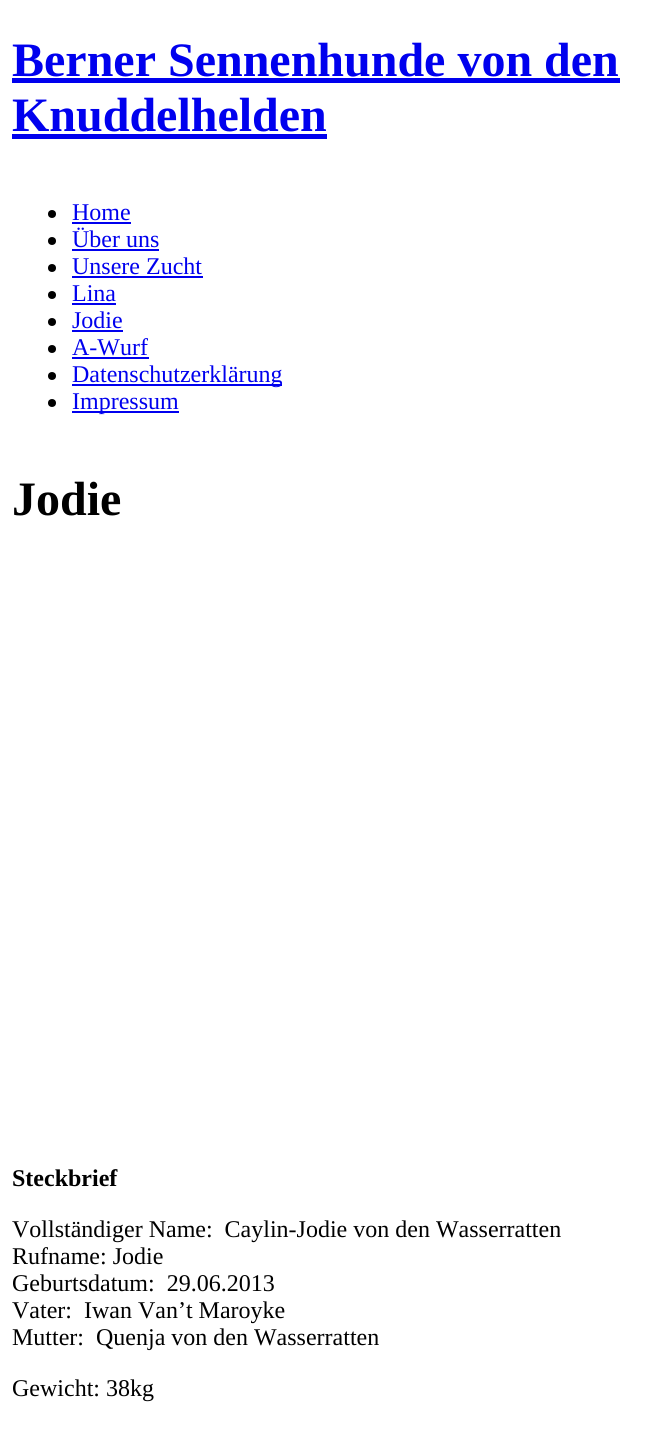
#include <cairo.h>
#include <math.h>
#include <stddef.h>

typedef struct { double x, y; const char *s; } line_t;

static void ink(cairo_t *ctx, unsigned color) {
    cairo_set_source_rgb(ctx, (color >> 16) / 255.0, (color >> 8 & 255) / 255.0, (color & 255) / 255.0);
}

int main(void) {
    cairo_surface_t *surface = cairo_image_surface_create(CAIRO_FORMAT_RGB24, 648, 1450);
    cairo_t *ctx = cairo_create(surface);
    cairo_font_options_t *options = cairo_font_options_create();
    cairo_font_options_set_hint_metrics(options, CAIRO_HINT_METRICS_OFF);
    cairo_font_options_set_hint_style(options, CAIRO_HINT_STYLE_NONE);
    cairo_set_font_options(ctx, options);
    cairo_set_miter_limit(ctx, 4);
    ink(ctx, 0xFFFFFF);
    cairo_paint(ctx);
    cairo_select_font_face(ctx, "Liberation Serif", CAIRO_FONT_SLANT_NORMAL, CAIRO_FONT_WEIGHT_BOLD);
    cairo_set_font_size(ctx, 48);
    ink(ctx, 0x0000EE);
    cairo_move_to(ctx, 12, 76);
    cairo_show_text(ctx, "Berner Sennenhunde von den");
    cairo_rectangle(ctx, 12, 78, 608, 5);
    cairo_fill(ctx);
    cairo_move_to(ctx, 12, 131);
    cairo_show_text(ctx, "Knuddelhelden");
    cairo_rectangle(ctx, 12, 134, 315, 5);
    cairo_fill(ctx);
    ink(ctx, 0x000000);
    cairo_arc(ctx, 52, 214, 4, 0, 2 * M_PI);
    cairo_fill(ctx);
    cairo_select_font_face(ctx, "Liberation Serif", CAIRO_FONT_SLANT_NORMAL, CAIRO_FONT_WEIGHT_NORMAL);
    cairo_set_font_size(ctx, 24);
    ink(ctx, 0x0000EE);
    cairo_move_to(ctx, 72, 220);
    cairo_show_text(ctx, "Home");
    cairo_rectangle(ctx, 72, 222, 59, 2);
    cairo_fill(ctx);
    ink(ctx, 0x000000);
    cairo_arc(ctx, 52, 241, 4, 0, 2 * M_PI);
    cairo_fill(ctx);
    ink(ctx, 0x0000EE);
    cairo_move_to(ctx, 72, 247);
    cairo_show_text(ctx, "Über uns");
    cairo_rectangle(ctx, 72, 249, 87, 2);
    cairo_fill(ctx);
    ink(ctx, 0x000000);
    cairo_arc(ctx, 52, 268, 4, 0, 2 * M_PI);
    cairo_fill(ctx);
    ink(ctx, 0x0000EE);
    cairo_move_to(ctx, 72, 274);
    cairo_show_text(ctx, "Unsere Zucht");
    cairo_rectangle(ctx, 72, 276, 131, 2);
    cairo_fill(ctx);
    ink(ctx, 0x000000);
    cairo_arc(ctx, 52, 295, 4, 0, 2 * M_PI);
    cairo_fill(ctx);
    ink(ctx, 0x0000EE);
    cairo_move_to(ctx, 72, 301);
    cairo_show_text(ctx, "Lina");
    cairo_rectangle(ctx, 72, 303, 44, 2);
    cairo_fill(ctx);
    ink(ctx, 0x000000);
    cairo_arc(ctx, 52, 322, 4, 0, 2 * M_PI);
    cairo_fill(ctx);
    ink(ctx, 0x0000EE);
    cairo_move_to(ctx, 72, 328);
    cairo_show_text(ctx, "Jodie");
    cairo_rectangle(ctx, 72, 330, 51, 2);
    cairo_fill(ctx);
    ink(ctx, 0x000000);
    cairo_arc(ctx, 52, 349, 4, 0, 2 * M_PI);
    cairo_fill(ctx);
    ink(ctx, 0x0000EE);
    cairo_move_to(ctx, 72, 355);
    cairo_show_text(ctx, "A-Wurf");
    cairo_rectangle(ctx, 72, 357, 77, 2);
    cairo_fill(ctx);
    ink(ctx, 0x000000);
    cairo_arc(ctx, 52, 376, 4, 0, 2 * M_PI);
    cairo_fill(ctx);
    ink(ctx, 0x0000EE);
    cairo_rectangle(ctx, 72, 384, 210, 2);
    cairo_fill(ctx);
    cairo_move_to(ctx, 72, 382);
    cairo_show_text(ctx, "Datenschutzerklärung");
    ink(ctx, 0x000000);
    cairo_new_path(ctx);
    cairo_arc(ctx, 52, 403, 4, 0, 2 * M_PI);
    cairo_fill(ctx);
    ink(ctx, 0x0000EE);
    cairo_rectangle(ctx, 72, 411, 107, 2);
    cairo_fill(ctx);
    cairo_move_to(ctx, 72, 409);
    cairo_show_text(ctx, "Impressum");
    cairo_select_font_face(ctx, "Liberation Serif", CAIRO_FONT_SLANT_NORMAL, CAIRO_FONT_WEIGHT_BOLD);
    cairo_set_font_size(ctx, 48);
    ink(ctx, 0x000000);
    cairo_move_to(ctx, 12, 515);
    cairo_show_text(ctx, "Jodie");
    cairo_set_font_size(ctx, 24);
    cairo_move_to(ctx, 12, 1186);
    cairo_show_text(ctx, "Steckbrief");
    cairo_select_font_face(ctx, "Liberation Serif", CAIRO_FONT_SLANT_NORMAL, CAIRO_FONT_WEIGHT_NORMAL);
    {
        static const line_t items[] = {
            {12, 1237, "Vollständiger Name:  Caylin-Jodie von den Wasserratten"},
            {12, 1264, "Rufname: Jodie"},
            {12, 1291, "Geburtsdatum:  29.06.2013"},
            {12, 1318, "Vater:  Iwan Van’t Maroyke"},
            {12, 1345, "Mutter:  Quenja von den Wasserratten"},
            {12, 1396, "Gewicht: 38kg"},
        };
        for (size_t i = 0; i < sizeof items / sizeof *items; i++) {
            cairo_move_to(ctx, items[i].x, items[i].y);
            cairo_show_text(ctx, items[i].s);
        }
    }
    cairo_surface_write_to_png(surface, "image.png");
    cairo_font_options_destroy(options);
    cairo_destroy(ctx);
    cairo_surface_destroy(surface);
    return 0;
}
